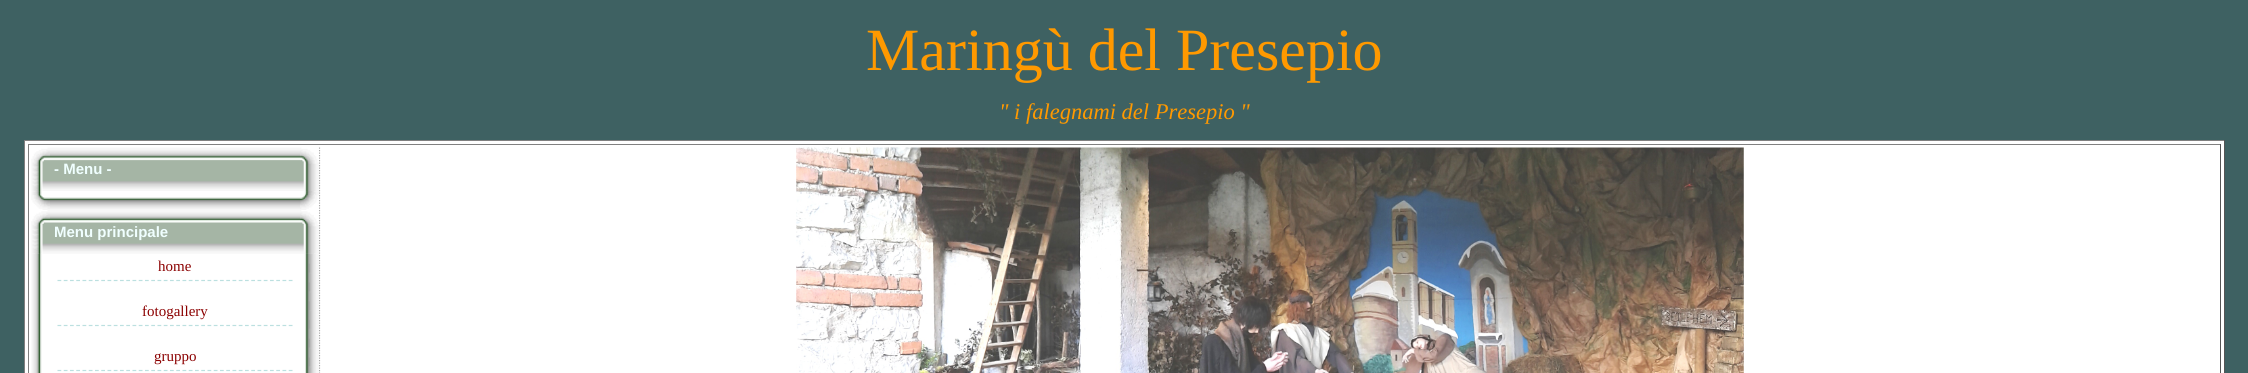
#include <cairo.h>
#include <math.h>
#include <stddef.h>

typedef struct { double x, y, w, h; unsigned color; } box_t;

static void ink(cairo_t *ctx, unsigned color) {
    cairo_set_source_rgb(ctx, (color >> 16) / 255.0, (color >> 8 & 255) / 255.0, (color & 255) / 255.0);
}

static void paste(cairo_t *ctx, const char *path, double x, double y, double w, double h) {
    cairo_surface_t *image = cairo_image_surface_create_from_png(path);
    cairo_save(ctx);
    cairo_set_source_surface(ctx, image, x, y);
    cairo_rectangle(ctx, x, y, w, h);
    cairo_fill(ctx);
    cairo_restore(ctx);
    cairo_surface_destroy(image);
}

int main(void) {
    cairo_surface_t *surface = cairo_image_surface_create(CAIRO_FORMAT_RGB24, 2248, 373);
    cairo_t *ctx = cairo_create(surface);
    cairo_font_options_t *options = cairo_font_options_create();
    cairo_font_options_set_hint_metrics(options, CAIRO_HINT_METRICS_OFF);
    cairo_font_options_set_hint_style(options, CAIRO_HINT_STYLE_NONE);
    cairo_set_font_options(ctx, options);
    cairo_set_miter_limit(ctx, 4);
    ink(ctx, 0x3E6162);
    cairo_paint(ctx);
    cairo_select_font_face(ctx, "Liberation Serif", CAIRO_FONT_SLANT_NORMAL, CAIRO_FONT_WEIGHT_NORMAL);
    cairo_set_font_size(ctx, 60);
    ink(ctx, 0xFF9900);
    cairo_move_to(ctx, 866, 70);
    cairo_show_text(ctx, "Maringù del Presepio");
    cairo_select_font_face(ctx, "Liberation Serif", CAIRO_FONT_SLANT_ITALIC, CAIRO_FONT_WEIGHT_NORMAL);
    cairo_set_font_size(ctx, 22.5);
    cairo_move_to(ctx, 999, 119);
    cairo_show_text(ctx, "\" i falegnami del Presepio \"");
    {
        static const box_t items[] = {
            {25, 141, 2199, 232, 0xFFFFFF},
            {24, 140, 2201, 1, 0x808080},
            {2224, 140, 1, 233, 0x555555},
            {24, 140, 1, 233, 0x808080},
            {28, 144, 2193, 1, 0x808080},
            {2220, 144, 1, 229, 0x555555},
            {28, 144, 1, 229, 0x808080},
        };
        for (size_t i = 0; i < sizeof items / sizeof *items; i++) {
            ink(ctx, items[i].color);
            cairo_rectangle(ctx, items[i].x, items[i].y, items[i].w, items[i].h);
            cairo_fill(ctx);
        }
    }
    cairo_new_path(ctx);
    cairo_move_to(ctx, 319.5, 147.5);
    cairo_line_to(ctx, 319.5, 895);
    ink(ctx, 0xA9A9A9);
    cairo_set_line_width(ctx, 1.2);
    cairo_set_dash(ctx, (double[]){1.25, 1.25}, 2, 0);
    cairo_stroke(ctx);
    paste(ctx, "media/1.png", 31, 147, 19, 45);
    paste(ctx, "media/6.png", 31, 191, 19, 19);
    paste(ctx, "media/2.png", 38, 191, 2, 1);
    paste(ctx, "media/3.png", 50, 147, 250, 44);
    cairo_select_font_face(ctx, "Liberation Sans", CAIRO_FONT_SLANT_NORMAL, CAIRO_FONT_WEIGHT_BOLD);
    cairo_set_font_size(ctx, 15);
    ink(ctx, 0xF0FFFF);
    cairo_move_to(ctx, 54, 174);
    cairo_show_text(ctx, "- Menu -");
    paste(ctx, "media/4.png", 300, 147, 19, 45);
    paste(ctx, "media/9.png", 300, 191, 19, 19);
    paste(ctx, "media/5.png", 306, 191, 2, 1);
    paste(ctx, "media/7.png", 35, 191, 6, 1);
    paste(ctx, "media/8.png", 50, 197, 250, 13);
    paste(ctx, "media/10.png", 305, 191, 9, 1);
    paste(ctx, "media/11.png", 31, 210, 19, 44);
    paste(ctx, "media/16.png", 31, 253, 11, 120);
    paste(ctx, "media/12.png", 35, 253, 6, 1);
    paste(ctx, "media/13.png", 50, 210, 250, 44);
    cairo_move_to(ctx, 54, 237);
    cairo_show_text(ctx, "Menu principale");
    paste(ctx, "media/14.png", 300, 210, 19, 44);
    paste(ctx, "media/17.png", 305, 253, 14, 120);
    paste(ctx, "media/15.png", 305, 253, 9, 1);
    cairo_new_path(ctx);
    cairo_move_to(ctx, 57.5, 280.5);
    cairo_line_to(ctx, 292.5, 280.5);
    ink(ctx, 0xBCE0E0);
    cairo_set_dash(ctx, (double[]){3.75, 2.5}, 2, 0);
    cairo_stroke(ctx);
    cairo_select_font_face(ctx, "Liberation Serif", CAIRO_FONT_SLANT_NORMAL, CAIRO_FONT_WEIGHT_NORMAL);
    ink(ctx, 0x8B0000);
    cairo_move_to(ctx, 158, 271);
    cairo_show_text(ctx, "home");
    cairo_new_path(ctx);
    cairo_move_to(ctx, 57.5, 325.5);
    cairo_line_to(ctx, 292.5, 325.5);
    ink(ctx, 0xBCE0E0);
    cairo_stroke(ctx);
    ink(ctx, 0x8B0000);
    cairo_move_to(ctx, 142, 316);
    cairo_show_text(ctx, "fotogallery");
    cairo_new_path(ctx);
    cairo_move_to(ctx, 57.5, 370.5);
    cairo_line_to(ctx, 292.5, 370.5);
    ink(ctx, 0xBCE0E0);
    cairo_stroke(ctx);
    ink(ctx, 0x8B0000);
    cairo_move_to(ctx, 154, 361);
    cairo_show_text(ctx, "gruppo");
    paste(ctx, "media/18.png", 796, 147, 948, 226);
    cairo_surface_write_to_png(surface, "image.png");
    cairo_font_options_destroy(options);
    cairo_destroy(ctx);
    cairo_surface_destroy(surface);
    return 0;
}
